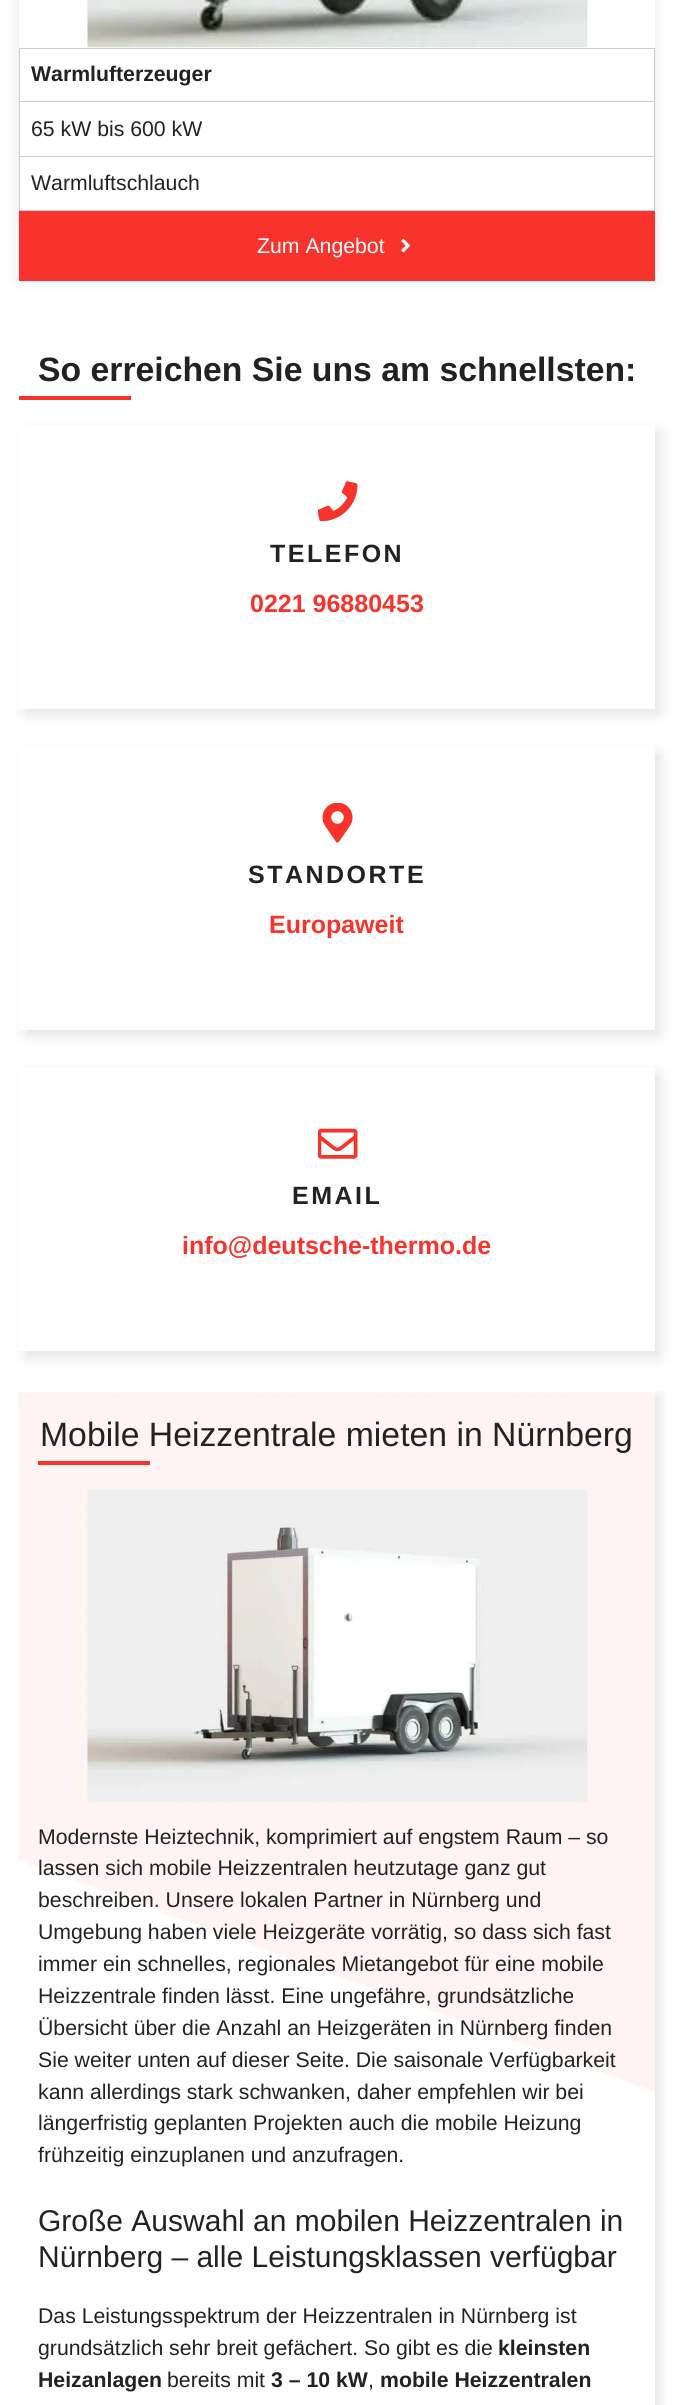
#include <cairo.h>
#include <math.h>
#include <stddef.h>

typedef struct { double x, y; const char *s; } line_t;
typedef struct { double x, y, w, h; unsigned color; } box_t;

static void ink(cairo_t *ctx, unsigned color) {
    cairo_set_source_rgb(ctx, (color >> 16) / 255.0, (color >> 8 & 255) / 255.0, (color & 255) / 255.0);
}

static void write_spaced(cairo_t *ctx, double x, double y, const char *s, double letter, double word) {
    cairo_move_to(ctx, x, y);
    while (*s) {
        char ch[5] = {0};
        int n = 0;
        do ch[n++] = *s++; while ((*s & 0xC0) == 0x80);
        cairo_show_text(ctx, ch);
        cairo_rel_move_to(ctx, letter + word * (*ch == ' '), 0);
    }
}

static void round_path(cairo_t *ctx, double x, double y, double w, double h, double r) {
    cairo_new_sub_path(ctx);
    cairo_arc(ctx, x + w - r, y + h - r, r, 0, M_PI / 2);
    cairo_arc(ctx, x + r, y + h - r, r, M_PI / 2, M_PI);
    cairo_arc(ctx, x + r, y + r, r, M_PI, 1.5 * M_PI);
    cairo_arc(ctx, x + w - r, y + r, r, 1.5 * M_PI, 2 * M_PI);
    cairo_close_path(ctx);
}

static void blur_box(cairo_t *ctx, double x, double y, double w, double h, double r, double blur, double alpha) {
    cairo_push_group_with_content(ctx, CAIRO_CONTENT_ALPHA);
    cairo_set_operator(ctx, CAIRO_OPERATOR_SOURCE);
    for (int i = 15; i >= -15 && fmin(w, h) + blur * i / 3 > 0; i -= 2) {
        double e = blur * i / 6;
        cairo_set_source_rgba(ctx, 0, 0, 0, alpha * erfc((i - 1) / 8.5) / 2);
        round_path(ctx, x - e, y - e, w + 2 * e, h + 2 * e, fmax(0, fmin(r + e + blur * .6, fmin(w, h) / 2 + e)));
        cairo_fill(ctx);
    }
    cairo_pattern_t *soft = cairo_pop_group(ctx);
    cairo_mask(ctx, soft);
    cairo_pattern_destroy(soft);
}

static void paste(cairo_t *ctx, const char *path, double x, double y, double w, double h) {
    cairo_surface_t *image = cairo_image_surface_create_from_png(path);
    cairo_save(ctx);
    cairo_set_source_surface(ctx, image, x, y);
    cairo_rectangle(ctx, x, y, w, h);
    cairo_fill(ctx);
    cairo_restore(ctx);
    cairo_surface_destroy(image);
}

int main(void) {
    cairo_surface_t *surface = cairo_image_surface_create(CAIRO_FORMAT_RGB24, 673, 2405);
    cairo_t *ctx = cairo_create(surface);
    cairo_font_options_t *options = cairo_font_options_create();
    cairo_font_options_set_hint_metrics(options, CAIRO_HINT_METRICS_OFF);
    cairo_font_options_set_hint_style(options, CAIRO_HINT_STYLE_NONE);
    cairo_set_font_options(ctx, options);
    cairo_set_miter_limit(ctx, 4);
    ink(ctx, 0xFFFFFF);
    cairo_paint(ctx);
    cairo_save(ctx);
    cairo_set_fill_rule(ctx, CAIRO_FILL_RULE_EVEN_ODD);
    cairo_new_path(ctx);
    cairo_move_to(ctx, 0, 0);
    cairo_line_to(ctx, 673, 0);
    cairo_line_to(ctx, 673, 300);
    cairo_line_to(ctx, 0, 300);
    cairo_close_path(ctx);
    cairo_move_to(ctx, 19, -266);
    cairo_line_to(ctx, 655, -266);
    cairo_line_to(ctx, 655, 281);
    cairo_line_to(ctx, 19, 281);
    cairo_close_path(ctx);
    cairo_clip(ctx);
    ink(ctx, 0x000000);
    blur_box(ctx, 19, -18, 636, 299, 0, 6, 0.1);
    cairo_restore(ctx);
    paste(ctx, "media/1.png", 87, 0, 501, 48);
    {
        static const box_t items[] = {
            {19, 48, 636, 1, 0xCCCCCC},
            {19, 101, 636, 1, 0xCCCCCC},
            {19, 156, 636, 1, 0xCCCCCC},
            {654, 156, 1, 55, 0xCCCCCC},
            {654, 101, 1, 57, 0xCCCCCC},
            {654, 48, 1, 55, 0xCCCCCC},
            {19, 210, 636, 1, 0xCCCCCC},
            {19, 156, 1, 55, 0xCCCCCC},
            {19, 101, 1, 57, 0xCCCCCC},
            {19, 48, 1, 55, 0xCCCCCC},
        };
        for (size_t i = 0; i < sizeof items / sizeof *items; i++) {
            ink(ctx, items[i].color);
            cairo_rectangle(ctx, items[i].x, items[i].y, items[i].w, items[i].h);
            cairo_fill(ctx);
        }
    }
    cairo_select_font_face(ctx, "Liberation Sans", CAIRO_FONT_SLANT_NORMAL, CAIRO_FONT_WEIGHT_BOLD);
    cairo_set_font_size(ctx, 21.25);
    ink(ctx, 0x222222);
    cairo_move_to(ctx, 31, 81);
    cairo_show_text(ctx, "Warmlufterzeuger");
    cairo_select_font_face(ctx, "Liberation Sans", CAIRO_FONT_SLANT_NORMAL, CAIRO_FONT_WEIGHT_NORMAL);
    cairo_move_to(ctx, 31, 136);
    cairo_show_text(ctx, "65 kW bis 600 kW");
    cairo_move_to(ctx, 31, 190);
    cairo_show_text(ctx, "Warmluftschlauch");
    ink(ctx, 0xF7332C);
    cairo_rectangle(ctx, 19, 211, 636, 70);
    cairo_fill(ctx);
    ink(ctx, 0xFFFFFF);
    cairo_move_to(ctx, 257, 253);
    cairo_show_text(ctx, "Zum Angebot");
    paste(ctx, "media/2.png", 401, 239, 9, 14);
    cairo_select_font_face(ctx, "Liberation Sans", CAIRO_FONT_SLANT_NORMAL, CAIRO_FONT_WEIGHT_BOLD);
    cairo_set_font_size(ctx, 33.75);
    ink(ctx, 0x222222);
    cairo_move_to(ctx, 38, 381);
    cairo_show_text(ctx, "So erreichen Sie uns am schnellsten:");
    ink(ctx, 0xF7332C);
    cairo_rectangle(ctx, 19, 396, 112, 4);
    cairo_fill(ctx);
    cairo_save(ctx);
    cairo_set_fill_rule(ctx, CAIRO_FILL_RULE_EVEN_ODD);
    cairo_new_path(ctx);
    cairo_move_to(ctx, 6, 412);
    cairo_line_to(ctx, 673, 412);
    cairo_line_to(ctx, 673, 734);
    cairo_line_to(ctx, 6, 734);
    cairo_close_path(ctx);
    cairo_move_to(ctx, 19, 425);
    cairo_line_to(ctx, 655, 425);
    cairo_line_to(ctx, 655, 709);
    cairo_line_to(ctx, 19, 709);
    cairo_close_path(ctx);
    cairo_clip(ctx);
    ink(ctx, 0x000000);
    blur_box(ctx, 25, 431, 636, 284, 0, 6, 0.1);
    cairo_restore(ctx);
    paste(ctx, "media/3.png", 318, 481, 40, 40);
    cairo_set_font_size(ctx, 25);
    ink(ctx, 0x222222);
    write_spaced(ctx, 270, 562, "TELEFON", 2.5, 0);
    ink(ctx, 0xF7332C);
    cairo_move_to(ctx, 250, 612);
    cairo_show_text(ctx, "0221 96880453");
    cairo_save(ctx);
    cairo_set_fill_rule(ctx, CAIRO_FILL_RULE_EVEN_ODD);
    cairo_new_path(ctx);
    cairo_move_to(ctx, 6, 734);
    cairo_line_to(ctx, 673, 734);
    cairo_line_to(ctx, 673, 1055);
    cairo_line_to(ctx, 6, 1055);
    cairo_close_path(ctx);
    cairo_move_to(ctx, 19, 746);
    cairo_line_to(ctx, 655, 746);
    cairo_line_to(ctx, 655, 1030);
    cairo_line_to(ctx, 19, 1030);
    cairo_close_path(ctx);
    cairo_clip(ctx);
    ink(ctx, 0x000000);
    blur_box(ctx, 25, 753, 636, 283, 0, 6, 0.1);
    cairo_restore(ctx);
    paste(ctx, "media/4.png", 322, 803, 31, 40);
    ink(ctx, 0x222222);
    write_spaced(ctx, 248, 883, "STANDORTE", 2.5, 0);
    ink(ctx, 0xF7332C);
    cairo_move_to(ctx, 269, 933);
    cairo_show_text(ctx, "Europaweit");
    cairo_save(ctx);
    cairo_set_fill_rule(ctx, CAIRO_FILL_RULE_EVEN_ODD);
    cairo_new_path(ctx);
    cairo_move_to(ctx, 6, 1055);
    cairo_line_to(ctx, 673, 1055);
    cairo_line_to(ctx, 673, 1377);
    cairo_line_to(ctx, 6, 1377);
    cairo_close_path(ctx);
    cairo_move_to(ctx, 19, 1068);
    cairo_line_to(ctx, 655, 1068);
    cairo_line_to(ctx, 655, 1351);
    cairo_line_to(ctx, 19, 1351);
    cairo_close_path(ctx);
    cairo_clip(ctx);
    ink(ctx, 0x000000);
    blur_box(ctx, 25, 1074, 636, 284, 0, 6, 0.1);
    cairo_restore(ctx);
    paste(ctx, "media/5.png", 318, 1128, 40, 31);
    ink(ctx, 0x222222);
    write_spaced(ctx, 292, 1204, "EMAIL", 2.5, 0);
    ink(ctx, 0xF7332C);
    cairo_move_to(ctx, 182, 1254);
    cairo_show_text(ctx, "info@deutsche-thermo.de");
    cairo_save(ctx);
    cairo_rectangle(ctx, 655, 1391, 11, 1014);
    cairo_clip(ctx);
    ink(ctx, 0x000000);
    blur_box(ctx, 25, 1395, 636, 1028, 0, 6, 0.1);
    cairo_restore(ctx);
    paste(ctx, "media/6.png", 19, 1392, 636, 701);
    cairo_select_font_face(ctx, "Liberation Sans", CAIRO_FONT_SLANT_NORMAL, CAIRO_FONT_WEIGHT_NORMAL);
    cairo_set_font_size(ctx, 33.75);
    ink(ctx, 0x222222);
    cairo_move_to(ctx, 40, 1446);
    cairo_show_text(ctx, "Mobile Heizzentrale mieten in Nürnberg");
    ink(ctx, 0xF7332C);
    cairo_rectangle(ctx, 38, 1461, 112, 4);
    cairo_fill(ctx);
    paste(ctx, "media/7.png", 87, 1489, 501, 314);
    cairo_set_font_size(ctx, 21.25);
    ink(ctx, 0x222222);
    {
        static const line_t items[] = {
            {38, 1844, "Modernste Heiztechnik, komprimiert auf engstem Raum – so"},
            {38, 1875, "lassen sich mobile Heizzentralen heutzutage ganz gut"},
            {38, 1907, "beschreiben. Unsere lokalen Partner in Nürnberg und"},
            {38, 1939, "Umgebung haben viele Heizgeräte vorrätig, so dass sich fast"},
            {38, 1971, "immer ein schnelles, regionales Mietangebot für eine mobile"},
            {38, 2003, "Heizzentrale finden lässt. Eine ungefähre, grundsätzliche"},
            {38, 2035, "Übersicht über die Anzahl an Heizgeräten in Nürnberg finden"},
            {38, 2067, "Sie weiter unten auf dieser Seite. Die saisonale Verfügbarkeit"},
            {38, 2099, "kann allerdings stark schwanken, daher empfehlen wir bei"},
            {38, 2130, "längerfristig geplanten Projekten auch die mobile Heizung"},
            {38, 2162, "frühzeitig einzuplanen und anzufragen."},
        };
        for (size_t i = 0; i < sizeof items / sizeof *items; i++) {
            cairo_move_to(ctx, items[i].x, items[i].y);
            cairo_show_text(ctx, items[i].s);
        }
    }
    cairo_set_font_size(ctx, 30);
    cairo_move_to(ctx, 38, 2231);
    cairo_show_text(ctx, "Große Auswahl an mobilen Heizzentralen in");
    cairo_move_to(ctx, 38, 2267);
    cairo_show_text(ctx, "Nürnberg – alle Leistungsklassen verfügbar");
    cairo_set_font_size(ctx, 21.25);
    cairo_move_to(ctx, 38, 2323);
    cairo_show_text(ctx, "Das Leistungsspektrum der Heizzentralen in Nürnberg ist");
    cairo_move_to(ctx, 38, 2355);
    cairo_show_text(ctx, "grundsätzlich sehr breit gefächert. So gibt es die");
    cairo_select_font_face(ctx, "Liberation Sans", CAIRO_FONT_SLANT_NORMAL, CAIRO_FONT_WEIGHT_BOLD);
    cairo_move_to(ctx, 498, 2355);
    cairo_show_text(ctx, "kleinsten");
    cairo_move_to(ctx, 38, 2387);
    cairo_show_text(ctx, "Heizanlagen");
    cairo_select_font_face(ctx, "Liberation Sans", CAIRO_FONT_SLANT_NORMAL, CAIRO_FONT_WEIGHT_NORMAL);
    cairo_move_to(ctx, 167, 2387);
    cairo_show_text(ctx, "bereits mit");
    cairo_select_font_face(ctx, "Liberation Sans", CAIRO_FONT_SLANT_NORMAL, CAIRO_FONT_WEIGHT_BOLD);
    cairo_move_to(ctx, 271, 2387);
    cairo_show_text(ctx, "3 – 10 kW");
    cairo_select_font_face(ctx, "Liberation Sans", CAIRO_FONT_SLANT_NORMAL, CAIRO_FONT_WEIGHT_NORMAL);
    cairo_move_to(ctx, 368, 2387);
    cairo_show_text(ctx, ",");
    cairo_select_font_face(ctx, "Liberation Sans", CAIRO_FONT_SLANT_NORMAL, CAIRO_FONT_WEIGHT_BOLD);
    cairo_move_to(ctx, 380, 2387);
    cairo_show_text(ctx, "mobile Heizzentralen");
    cairo_surface_write_to_png(surface, "image.png");
    cairo_font_options_destroy(options);
    cairo_destroy(ctx);
    cairo_surface_destroy(surface);
    return 0;
}
